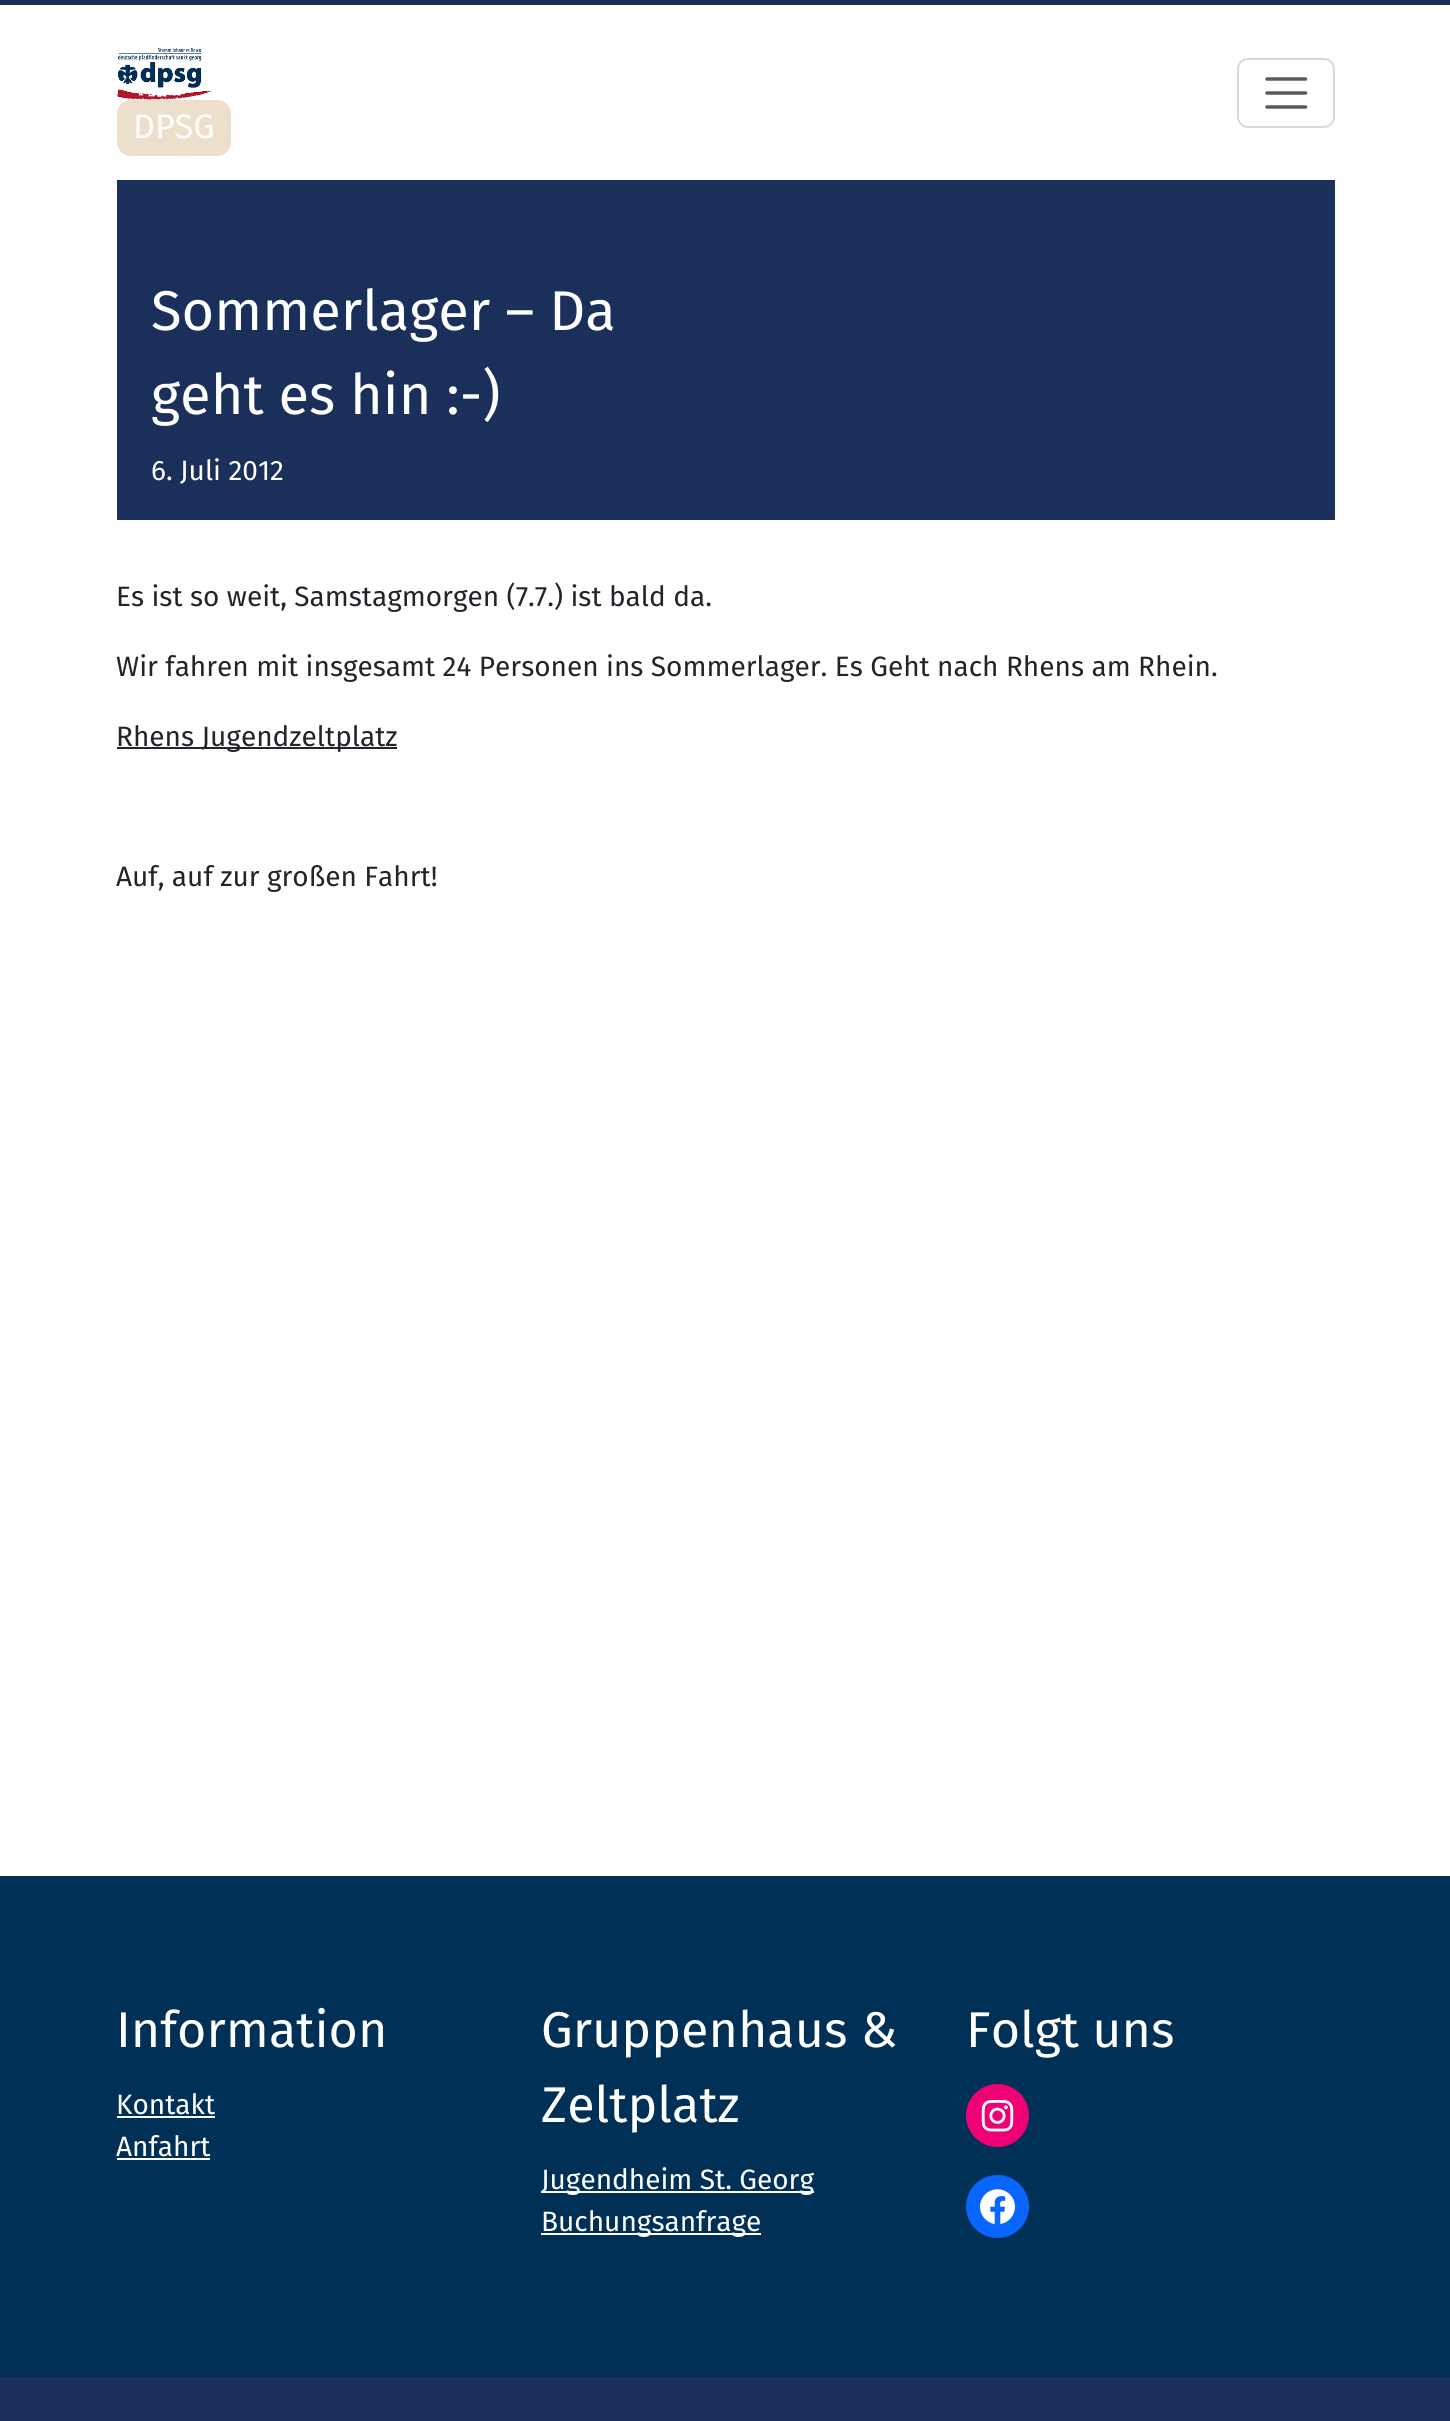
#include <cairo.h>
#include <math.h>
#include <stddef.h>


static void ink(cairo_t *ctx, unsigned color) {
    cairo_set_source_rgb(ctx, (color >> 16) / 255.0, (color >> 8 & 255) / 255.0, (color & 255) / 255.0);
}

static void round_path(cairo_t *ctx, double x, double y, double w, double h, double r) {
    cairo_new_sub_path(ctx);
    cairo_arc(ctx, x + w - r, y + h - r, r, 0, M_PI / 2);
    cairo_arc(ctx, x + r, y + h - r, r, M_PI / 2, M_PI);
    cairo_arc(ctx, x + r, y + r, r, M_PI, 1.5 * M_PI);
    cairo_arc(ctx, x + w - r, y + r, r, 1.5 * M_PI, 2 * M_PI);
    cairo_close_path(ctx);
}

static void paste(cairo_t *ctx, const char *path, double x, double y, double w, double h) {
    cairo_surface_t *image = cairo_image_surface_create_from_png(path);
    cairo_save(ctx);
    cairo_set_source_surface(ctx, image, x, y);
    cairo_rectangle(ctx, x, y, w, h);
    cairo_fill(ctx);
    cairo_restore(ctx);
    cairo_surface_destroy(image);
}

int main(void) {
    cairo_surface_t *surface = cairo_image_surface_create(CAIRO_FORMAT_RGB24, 1450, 2421);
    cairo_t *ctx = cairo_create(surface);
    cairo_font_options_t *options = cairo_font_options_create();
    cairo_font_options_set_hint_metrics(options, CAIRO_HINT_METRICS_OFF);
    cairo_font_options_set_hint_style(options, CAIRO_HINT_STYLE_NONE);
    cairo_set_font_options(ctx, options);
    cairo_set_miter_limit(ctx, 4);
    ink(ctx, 0xFFFFFF);
    cairo_paint(ctx);
    ink(ctx, 0x1A305B);
    cairo_rectangle(ctx, 0, 0, 1450, 5);
    cairo_fill(ctx);
    paste(ctx, "media/1.png", 117, 47, 95, 53);
    ink(ctx, 0xECDFCB);
    round_path(ctx, 117, 100, 114, 56, 14);
    cairo_fill(ctx);
    cairo_select_font_face(ctx, "Fira Sans", CAIRO_FONT_SLANT_NORMAL, CAIRO_FONT_WEIGHT_NORMAL);
    cairo_set_font_size(ctx, 34);
    ink(ctx, 0xFFFFFF);
    cairo_move_to(ctx, 133, 138);
    cairo_show_text(ctx, "DPSG");
    round_path(ctx, 1238, 59, 96, 68, 10);
    ink(ctx, 0xD9D9D9);
    cairo_stroke(ctx);
    cairo_new_path(ctx);
    cairo_move_to(ctx, 1267, 79);
    cairo_line_to(ctx, 1305.5, 79);
    cairo_move_to(ctx, 1267, 93);
    cairo_line_to(ctx, 1305.5, 93);
    cairo_move_to(ctx, 1267, 107);
    cairo_line_to(ctx, 1305.5, 107);
    ink(ctx, 0x595C5F);
    cairo_set_line_width(ctx, 3.5);
    cairo_set_line_cap(ctx, CAIRO_LINE_CAP_ROUND);
    cairo_stroke(ctx);
    ink(ctx, 0x1A305B);
    cairo_rectangle(ctx, 117, 180, 1218, 340);
    cairo_fill(ctx);
    cairo_set_font_size(ctx, 56);
    ink(ctx, 0xFFFFFF);
    cairo_move_to(ctx, 151, 330);
    cairo_show_text(ctx, "Sommerlager – Da");
    cairo_move_to(ctx, 151, 414);
    cairo_show_text(ctx, "geht es hin :-)");
    cairo_set_font_size(ctx, 28);
    cairo_move_to(ctx, 151, 480);
    cairo_show_text(ctx, "6. Juli 2012");
    ink(ctx, 0x212529);
    cairo_move_to(ctx, 116, 606);
    cairo_show_text(ctx, "Es ist so weit, Samstagmorgen (7.7.) ist bald da.");
    cairo_move_to(ctx, 116, 676);
    cairo_show_text(ctx, "Wir fahren mit insgesamt 24 Personen ins Sommerlager. Es Geht nach Rhens am Rhein.");
    cairo_rectangle(ctx, 117, 747, 280, 2);
    cairo_fill(ctx);
    cairo_move_to(ctx, 116, 746);
    cairo_show_text(ctx, "Rhens Jugendzeltplatz");
    cairo_move_to(ctx, 116, 886);
    cairo_show_text(ctx, "Auf, auf zur großen Fahrt!");
    ink(ctx, 0x003056);
    cairo_rectangle(ctx, 0, 1876, 1450, 501);
    cairo_fill(ctx);
    cairo_set_font_size(ctx, 50.25);
    ink(ctx, 0xFFFFFF);
    cairo_move_to(ctx, 116, 2047);
    cairo_show_text(ctx, "Information");
    cairo_set_font_size(ctx, 28);
    cairo_move_to(ctx, 116, 2114);
    cairo_show_text(ctx, "Kontakt");
    cairo_rectangle(ctx, 117, 2116, 98, 2);
    cairo_fill(ctx);
    cairo_move_to(ctx, 116, 2156);
    cairo_show_text(ctx, "Anfahrt");
    cairo_rectangle(ctx, 117, 2158, 93, 2);
    cairo_fill(ctx);
    cairo_set_font_size(ctx, 50.25);
    cairo_move_to(ctx, 541, 2047);
    cairo_show_text(ctx, "Gruppenhaus &");
    cairo_move_to(ctx, 541, 2122);
    cairo_show_text(ctx, "Zeltplatz");
    cairo_rectangle(ctx, 541, 2191, 273, 2);
    cairo_fill(ctx);
    cairo_set_font_size(ctx, 28);
    cairo_move_to(ctx, 541, 2189);
    cairo_show_text(ctx, "Jugendheim St. Georg");
    cairo_rectangle(ctx, 541, 2233, 220, 2);
    cairo_fill(ctx);
    cairo_move_to(ctx, 541, 2231);
    cairo_show_text(ctx, "Buchungsanfrage");
    cairo_set_font_size(ctx, 50.25);
    cairo_move_to(ctx, 966, 2047);
    cairo_show_text(ctx, "Folgt uns");
    ink(ctx, 0xF00075);
    cairo_new_path(ctx);
    cairo_arc(ctx, 997.5, 2115.5, 31.5, 0, 2 * M_PI);
    cairo_fill(ctx);
    paste(ctx, "media/2.png", 981, 2100, 33, 32);
    ink(ctx, 0x0866FF);
    cairo_arc(ctx, 997.5, 2206.5, 31.5, 0, 2 * M_PI);
    cairo_fill(ctx);
    paste(ctx, "media/3.png", 980, 2189, 35, 35);
    ink(ctx, 0x1A305B);
    cairo_rectangle(ctx, 0, 2377, 1450, 44);
    cairo_fill(ctx);
    cairo_surface_write_to_png(surface, "image.png");
    cairo_font_options_destroy(options);
    cairo_destroy(ctx);
    cairo_surface_destroy(surface);
    return 0;
}
